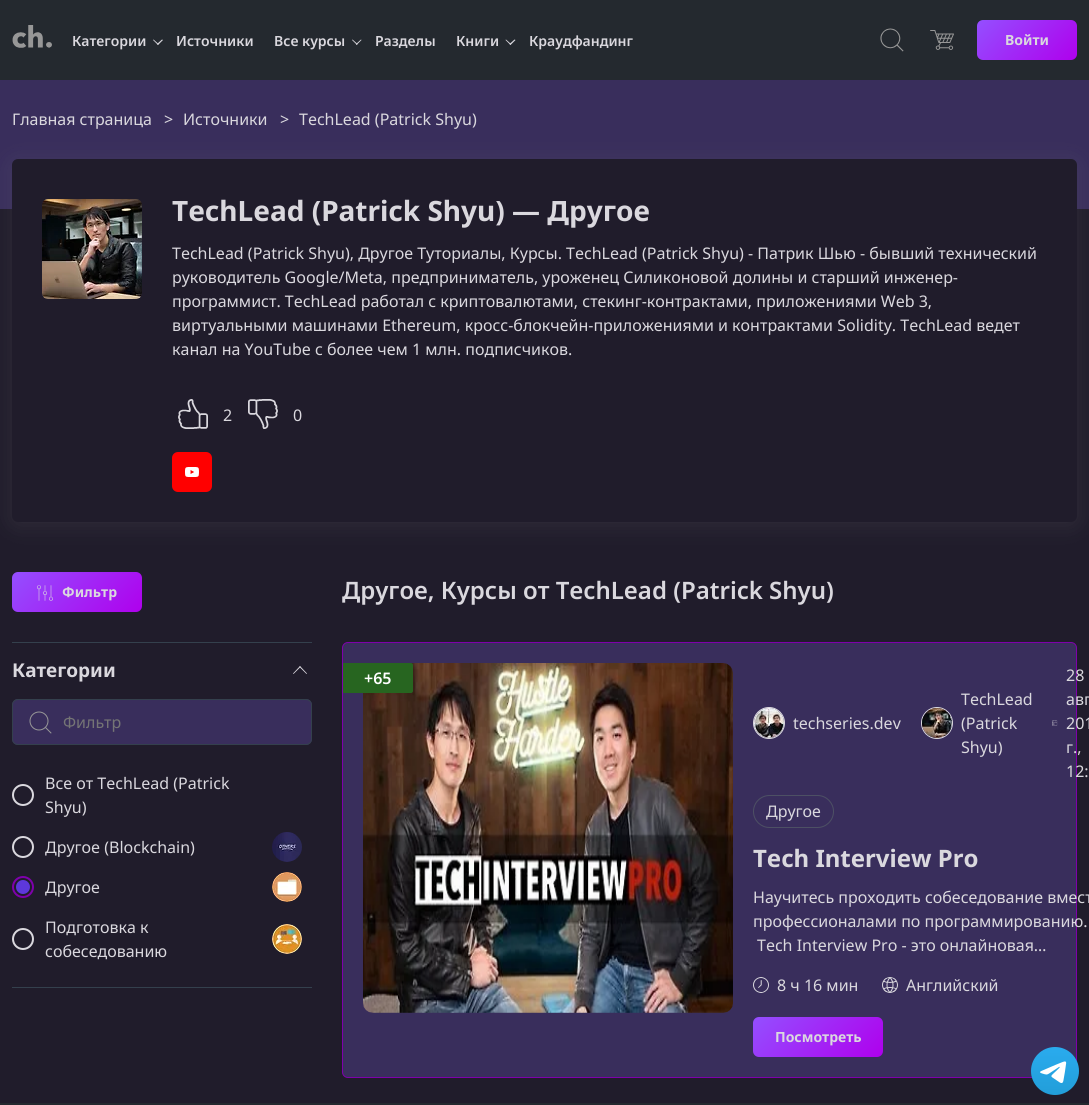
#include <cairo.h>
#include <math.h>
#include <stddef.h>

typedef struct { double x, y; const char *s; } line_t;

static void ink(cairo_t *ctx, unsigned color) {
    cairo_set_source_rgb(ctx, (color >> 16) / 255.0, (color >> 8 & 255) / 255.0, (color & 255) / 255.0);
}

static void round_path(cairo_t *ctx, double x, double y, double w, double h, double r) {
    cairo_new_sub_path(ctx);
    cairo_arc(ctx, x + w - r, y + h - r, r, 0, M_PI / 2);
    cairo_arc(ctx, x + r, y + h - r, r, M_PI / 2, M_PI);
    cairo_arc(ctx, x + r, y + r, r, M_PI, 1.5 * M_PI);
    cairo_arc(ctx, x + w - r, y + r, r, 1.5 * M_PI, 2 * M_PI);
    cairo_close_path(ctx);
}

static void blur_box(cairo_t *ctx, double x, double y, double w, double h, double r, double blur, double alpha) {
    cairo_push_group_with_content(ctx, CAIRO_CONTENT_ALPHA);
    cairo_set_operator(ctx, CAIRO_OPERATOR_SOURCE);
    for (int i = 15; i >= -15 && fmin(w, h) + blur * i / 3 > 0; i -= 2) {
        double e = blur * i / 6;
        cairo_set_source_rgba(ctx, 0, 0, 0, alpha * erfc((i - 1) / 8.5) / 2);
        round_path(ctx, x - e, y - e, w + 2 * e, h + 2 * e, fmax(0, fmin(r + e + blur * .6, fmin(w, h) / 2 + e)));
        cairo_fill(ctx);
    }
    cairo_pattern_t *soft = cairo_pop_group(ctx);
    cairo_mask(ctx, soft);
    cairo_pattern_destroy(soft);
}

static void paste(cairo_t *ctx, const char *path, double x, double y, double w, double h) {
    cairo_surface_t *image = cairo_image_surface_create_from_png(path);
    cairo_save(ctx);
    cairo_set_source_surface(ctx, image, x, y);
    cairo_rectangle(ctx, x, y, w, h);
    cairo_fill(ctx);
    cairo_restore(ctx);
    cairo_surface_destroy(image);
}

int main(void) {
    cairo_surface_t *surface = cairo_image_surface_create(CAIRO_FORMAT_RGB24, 1089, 1105);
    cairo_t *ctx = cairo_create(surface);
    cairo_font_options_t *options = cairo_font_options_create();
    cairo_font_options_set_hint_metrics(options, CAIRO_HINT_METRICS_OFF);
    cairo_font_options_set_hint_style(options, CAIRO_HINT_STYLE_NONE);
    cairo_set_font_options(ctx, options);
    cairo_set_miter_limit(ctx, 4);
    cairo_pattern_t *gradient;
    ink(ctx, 0x201C2B);
    cairo_paint(ctx);
    ink(ctx, 0x24292F);
    cairo_rectangle(ctx, 0, 0, 1089, 80);
    cairo_fill(ctx);
    paste(ctx, "media/1.png", 12, 25, 40, 23);
    cairo_select_font_face(ctx, "Noto Sans SemiBold", CAIRO_FONT_SLANT_NORMAL, CAIRO_FONT_WEIGHT_NORMAL);
    cairo_set_font_size(ctx, 14);
    ink(ctx, 0xDAD8DE);
    cairo_move_to(ctx, 72, 46);
    cairo_show_text(ctx, "Категории");
    cairo_new_path(ctx);
    cairo_move_to(ctx, 157, 44);
    cairo_line_to(ctx, 162, 39.5);
    cairo_line_to(ctx, 163, 40);
    cairo_line_to(ctx, 158, 45);
    cairo_close_path(ctx);
    cairo_fill(ctx);
    cairo_new_path(ctx);
    cairo_move_to(ctx, 153.5, 39.5);
    cairo_line_to(ctx, 158.5, 44);
    cairo_line_to(ctx, 158, 45);
    cairo_line_to(ctx, 153, 40);
    cairo_close_path(ctx);
    cairo_fill(ctx);
    cairo_move_to(ctx, 176, 46);
    cairo_show_text(ctx, "Источники");
    cairo_move_to(ctx, 274, 46);
    cairo_show_text(ctx, "Все курсы");
    cairo_new_path(ctx);
    cairo_move_to(ctx, 356, 44);
    cairo_line_to(ctx, 361, 39.5);
    cairo_line_to(ctx, 361.5, 40);
    cairo_line_to(ctx, 356.5, 45);
    cairo_close_path(ctx);
    cairo_fill(ctx);
    cairo_new_path(ctx);
    cairo_move_to(ctx, 352.5, 39.5);
    cairo_line_to(ctx, 357.5, 44);
    cairo_line_to(ctx, 357, 45);
    cairo_line_to(ctx, 352, 40);
    cairo_close_path(ctx);
    cairo_fill(ctx);
    cairo_move_to(ctx, 375, 46);
    cairo_show_text(ctx, "Разделы");
    cairo_move_to(ctx, 456, 46);
    cairo_show_text(ctx, "Книги");
    cairo_new_path(ctx);
    cairo_move_to(ctx, 509.5, 44);
    cairo_line_to(ctx, 514.5, 39.5);
    cairo_line_to(ctx, 515.5, 40);
    cairo_line_to(ctx, 510.5, 45);
    cairo_close_path(ctx);
    cairo_fill(ctx);
    cairo_new_path(ctx);
    cairo_move_to(ctx, 506, 39.5);
    cairo_line_to(ctx, 511, 44);
    cairo_line_to(ctx, 510.5, 45);
    cairo_line_to(ctx, 505.5, 40);
    cairo_close_path(ctx);
    cairo_fill(ctx);
    cairo_move_to(ctx, 529, 46);
    cairo_show_text(ctx, "Краудфандинг");
    paste(ctx, "media/2.png", 880, 28, 24, 24);
    paste(ctx, "media/3.png", 930, 30, 24, 20);
    gradient = cairo_pattern_create_linear(991, 5.4, 1063, 75);
    cairo_pattern_add_color_stop_rgba(gradient, 0, 0.58, 0.31, 1, 1);
    cairo_pattern_add_color_stop_rgba(gradient, 1, 0.686, 0, 0.929, 1);
    cairo_set_source(ctx, gradient);
    cairo_pattern_destroy(gradient);
    round_path(ctx, 977, 20, 100, 40, 6);
    cairo_fill(ctx);
    cairo_select_font_face(ctx, "Noto Sans", CAIRO_FONT_SLANT_NORMAL, CAIRO_FONT_WEIGHT_BOLD);
    ink(ctx, 0xDAD8DE);
    cairo_move_to(ctx, 1005, 45);
    cairo_show_text(ctx, "Войти");
    ink(ctx, 0x392E5C);
    cairo_rectangle(ctx, 0, 80, 1089, 129);
    cairo_fill(ctx);
    cairo_select_font_face(ctx, "Noto Sans", CAIRO_FONT_SLANT_NORMAL, CAIRO_FONT_WEIGHT_NORMAL);
    cairo_set_font_size(ctx, 16);
    ink(ctx, 0xDAD8DE);
    {
        static const line_t items[] = {
            {12, 125, "Главная страница"},
            {164, 125, ">"},
            {183, 125, "Источники"},
            {280, 125, ">"},
            {299, 125, "TechLead (Patrick Shyu)"},
        };
        for (size_t i = 0; i < sizeof items / sizeof *items; i++) {
            cairo_move_to(ctx, items[i].x, items[i].y);
            cairo_show_text(ctx, items[i].s);
        }
    }
    ink(ctx, 0x757575);
    blur_box(ctx, 12, 162, 1065, 363, 6, 10.5, 0.2);
    ink(ctx, 0x201C2B);
    round_path(ctx, 12, 159, 1065, 363, 6);
    cairo_fill(ctx);
    paste(ctx, "media/4.png", 42, 199, 100, 100);
    cairo_select_font_face(ctx, "Noto Sans", CAIRO_FONT_SLANT_NORMAL, CAIRO_FONT_WEIGHT_BOLD);
    cairo_set_font_size(ctx, 28);
    ink(ctx, 0xDAD8DE);
    cairo_move_to(ctx, 172, 221);
    cairo_show_text(ctx, "TechLead (Patrick Shyu) — Другое");
    cairo_select_font_face(ctx, "Noto Sans", CAIRO_FONT_SLANT_NORMAL, CAIRO_FONT_WEIGHT_NORMAL);
    cairo_set_font_size(ctx, 16);
    {
        static const line_t items[] = {
            {172, 259, "TechLead (Patrick Shyu), Другое Туториалы, Курсы. TechLead (Patrick Shyu) - Патрик Шью - бывший технический"},
            {172, 283, "руководитель Google/Meta, предприниматель, уроженец Силиконовой долины и старший инженер-"},
            {172, 307, "программист. TechLead работал с криптовалютами, стекинг-контрактами, приложениями Web 3,"},
            {172, 331, "виртуальными машинами Ethereum, кросс-блокчейн-приложениями и контрактами Solidity. TechLead ведет"},
            {172, 355, "канал на YouTube с более чем 1 млн. подписчиков."},
        };
        for (size_t i = 0; i < sizeof items / sizeof *items; i++) {
            cairo_move_to(ctx, items[i].x, items[i].y);
            cairo_show_text(ctx, items[i].s);
        }
    }
    paste(ctx, "media/5.png", 178, 399, 30, 30);
    cairo_move_to(ctx, 223, 421);
    cairo_show_text(ctx, "2");
    paste(ctx, "media/6.png", 248, 399, 30, 30);
    cairo_move_to(ctx, 293, 421);
    cairo_show_text(ctx, "0");
    ink(ctx, 0xFF0000);
    round_path(ctx, 172, 452, 40, 40, 6);
    cairo_fill(ctx);
    paste(ctx, "media/7.png", 185, 467, 14, 10);
    gradient = cairo_pattern_create_linear(33, 550, 121, 634);
    cairo_pattern_add_color_stop_rgba(gradient, 0, 0.58, 0.31, 1, 1);
    cairo_pattern_add_color_stop_rgba(gradient, 1, 0.686, 0, 0.929, 1);
    cairo_set_source(ctx, gradient);
    cairo_pattern_destroy(gradient);
    round_path(ctx, 12, 572, 130, 40, 6);
    cairo_fill(ctx);
    paste(ctx, "media/8.png", 37, 585, 16, 16);
    cairo_select_font_face(ctx, "Noto Sans", CAIRO_FONT_SLANT_NORMAL, CAIRO_FONT_WEIGHT_BOLD);
    cairo_set_font_size(ctx, 14);
    ink(ctx, 0xDAD8DE);
    cairo_move_to(ctx, 62, 597);
    cairo_show_text(ctx, "Фильтр");
    cairo_select_font_face(ctx, "Noto Sans SemiBold", CAIRO_FONT_SLANT_NORMAL, CAIRO_FONT_WEIGHT_NORMAL);
    cairo_set_font_size(ctx, 24);
    cairo_move_to(ctx, 342, 599);
    cairo_show_text(ctx, "Другое, Курсы от TechLead (Patrick Shyu)");
    ink(ctx, 0x34404D);
    cairo_rectangle(ctx, 12, 642, 300, 1);
    cairo_fill(ctx);
    cairo_rectangle(ctx, 12, 987, 300, 1);
    cairo_fill(ctx);
    cairo_select_font_face(ctx, "Noto Sans", CAIRO_FONT_SLANT_NORMAL, CAIRO_FONT_WEIGHT_BOLD);
    cairo_set_font_size(ctx, 19);
    ink(ctx, 0xDAD8DE);
    cairo_move_to(ctx, 12, 677);
    cairo_show_text(ctx, "Категории");
    cairo_new_path(ctx);
    cairo_move_to(ctx, 300.5, 667);
    cairo_line_to(ctx, 293.5, 674);
    cairo_line_to(ctx, 293, 673.5);
    cairo_line_to(ctx, 300, 666);
    cairo_close_path(ctx);
    cairo_fill(ctx);
    cairo_new_path(ctx);
    cairo_move_to(ctx, 306.5, 674);
    cairo_line_to(ctx, 299.5, 667);
    cairo_line_to(ctx, 300, 666);
    cairo_line_to(ctx, 307, 673.5);
    cairo_close_path(ctx);
    cairo_fill(ctx);
    ink(ctx, 0x392E5C);
    round_path(ctx, 12, 699, 300, 46, 6);
    cairo_fill(ctx);
    paste(ctx, "media/9.png", 29, 711, 23, 23);
    round_path(ctx, 12.5, 699.5, 299, 45, 5.5);
    ink(ctx, 0x34404D);
    cairo_set_line_width(ctx, 1);
    cairo_stroke(ctx);
    cairo_select_font_face(ctx, "Noto Sans", CAIRO_FONT_SLANT_NORMAL, CAIRO_FONT_WEIGHT_NORMAL);
    cairo_set_font_size(ctx, 16);
    ink(ctx, 0x757575);
    cairo_move_to(ctx, 63, 728);
    cairo_show_text(ctx, "Фильтр");
    cairo_new_path(ctx);
    cairo_arc(ctx, 23, 795, 10, 0, 2 * M_PI);
    ink(ctx, 0xDAD8DE);
    cairo_set_line_width(ctx, 2);
    cairo_stroke(ctx);
    cairo_move_to(ctx, 45, 789);
    cairo_show_text(ctx, "Все от TechLead (Patrick");
    cairo_move_to(ctx, 45, 813);
    cairo_show_text(ctx, "Shyu)");
    cairo_new_path(ctx);
    cairo_arc(ctx, 23, 847, 10, 0, 2 * M_PI);
    cairo_stroke(ctx);
    cairo_move_to(ctx, 45, 853);
    cairo_show_text(ctx, "Другоe (Blockchain)");
    paste(ctx, "media/10.png", 272, 832, 30, 30);
    cairo_arc(ctx, 23, 887, 10, 0, 2 * M_PI);
    ink(ctx, 0x7F00AC);
    cairo_stroke(ctx);
    paste(ctx, "media/11.png", 272, 872, 30, 30);
    ink(ctx, 0x5D38DB);
    cairo_arc(ctx, 23, 887, 7, 0, 2 * M_PI);
    cairo_fill(ctx);
    ink(ctx, 0xDAD8DE);
    cairo_move_to(ctx, 45, 893);
    cairo_show_text(ctx, "Другое");
    cairo_new_path(ctx);
    cairo_arc(ctx, 23, 939, 10, 0, 2 * M_PI);
    cairo_stroke(ctx);
    cairo_move_to(ctx, 45, 933);
    cairo_show_text(ctx, "Подготовка к");
    paste(ctx, "media/12.png", 272, 924, 30, 30);
    cairo_move_to(ctx, 45, 957);
    cairo_show_text(ctx, "собеседованию");
    ink(ctx, 0x392E5C);
    round_path(ctx, 342.5, 642.5, 734, 435, 5.5);
    cairo_fill_preserve(ctx);
    ink(ctx, 0x7F00AC);
    cairo_set_line_width(ctx, 1);
    cairo_stroke(ctx);
    paste(ctx, "media/13.png", 363, 663, 370, 350);
    cairo_arc(ctx, 769, 723, 15.5, 0, 2 * M_PI);
    ink(ctx, 0xDAD8DE);
    cairo_stroke(ctx);
    paste(ctx, "media/14.png", 754, 708, 30, 30);
    cairo_move_to(ctx, 793, 729);
    cairo_show_text(ctx, "techseries.dev");
    cairo_new_path(ctx);
    cairo_arc(ctx, 937, 723, 15.5, 0, 2 * M_PI);
    cairo_stroke(ctx);
    paste(ctx, "media/15.png", 922, 708, 30, 30);
    {
        static const line_t items[] = {
            {961, 705, "TechLead"},
            {961, 729, "(Patrick"},
            {961, 753, "Shyu)"},
            {1066, 681, "28"},
            {1066, 705, "авг"},
        };
        for (size_t i = 0; i < sizeof items / sizeof *items; i++) {
            cairo_move_to(ctx, items[i].x, items[i].y);
            cairo_show_text(ctx, items[i].s);
        }
    }
    paste(ctx, "media/16.png", 1052, 720, 6, 6);
    {
        static const line_t items[] = {
            {1066, 729, "201"},
            {1066, 753, "г.,"},
            {1066, 777, "12:"},
        };
        for (size_t i = 0; i < sizeof items / sizeof *items; i++) {
            cairo_move_to(ctx, items[i].x, items[i].y);
            cairo_show_text(ctx, items[i].s);
        }
    }
    round_path(ctx, 753.5, 795.5, 80, 32, 16);
    ink(ctx, 0x4D5064);
    cairo_stroke(ctx);
    ink(ctx, 0xDAD8DE);
    cairo_move_to(ctx, 766, 817);
    cairo_show_text(ctx, "Другое");
    cairo_select_font_face(ctx, "Noto Sans", CAIRO_FONT_SLANT_NORMAL, CAIRO_FONT_WEIGHT_BOLD);
    cairo_set_font_size(ctx, 24);
    cairo_move_to(ctx, 753, 867);
    cairo_show_text(ctx, "Tech Interview Pro");
    cairo_select_font_face(ctx, "Noto Sans", CAIRO_FONT_SLANT_NORMAL, CAIRO_FONT_WEIGHT_NORMAL);
    cairo_set_font_size(ctx, 16);
    {
        static const line_t items[] = {
            {753, 903, "Научитесь проходить собеседование вмест"},
            {753, 927, "профессионалами по программированию."},
            {757, 951, "Tech Interview Pro - это онлайновая…"},
        };
        for (size_t i = 0; i < sizeof items / sizeof *items; i++) {
            cairo_move_to(ctx, items[i].x, items[i].y);
            cairo_show_text(ctx, items[i].s);
        }
    }
    paste(ctx, "media/17.png", 753, 977, 16, 16);
    cairo_move_to(ctx, 777, 991);
    cairo_show_text(ctx, "8 ч 16 мин");
    paste(ctx, "media/18.png", 882, 977, 16, 16);
    cairo_move_to(ctx, 906, 991);
    cairo_show_text(ctx, "Английский");
    gradient = cairo_pattern_create_linear(774, 995, 862, 1079);
    cairo_pattern_add_color_stop_rgba(gradient, 0, 0.58, 0.31, 1, 1);
    cairo_pattern_add_color_stop_rgba(gradient, 1, 0.686, 0, 0.929, 1);
    cairo_set_source(ctx, gradient);
    cairo_pattern_destroy(gradient);
    round_path(ctx, 753, 1017, 130, 40, 6);
    cairo_fill(ctx);
    cairo_select_font_face(ctx, "Noto Sans", CAIRO_FONT_SLANT_NORMAL, CAIRO_FONT_WEIGHT_BOLD);
    cairo_set_font_size(ctx, 14);
    ink(ctx, 0xDAD8DE);
    cairo_move_to(ctx, 775, 1042);
    cairo_show_text(ctx, "Посмотреть");
    ink(ctx, 0x276520);
    cairo_new_path(ctx);
    cairo_move_to(ctx, 343, 663);
    cairo_line_to(ctx, 411, 663);
    cairo_curve_to(ctx, 412, 663, 413, 664, 413, 665);
    cairo_line_to(ctx, 413, 691);
    cairo_curve_to(ctx, 413, 692, 412, 693, 411, 693);
    cairo_line_to(ctx, 343, 693);
    cairo_close_path(ctx);
    cairo_fill(ctx);
    cairo_select_font_face(ctx, "Noto Sans SemiBold", CAIRO_FONT_SLANT_NORMAL, CAIRO_FONT_WEIGHT_NORMAL);
    cairo_set_font_size(ctx, 16);
    ink(ctx, 0xFFFFFF);
    cairo_move_to(ctx, 364, 684);
    cairo_show_text(ctx, "+65");
    paste(ctx, "media/19.png", 1031, 1047, 48, 48);
    ink(ctx, 0x24292F);
    cairo_rectangle(ctx, 0, 1103, 1089, 2);
    cairo_fill(ctx);
    cairo_surface_write_to_png(surface, "image.png");
    cairo_font_options_destroy(options);
    cairo_destroy(ctx);
    cairo_surface_destroy(surface);
    return 0;
}
